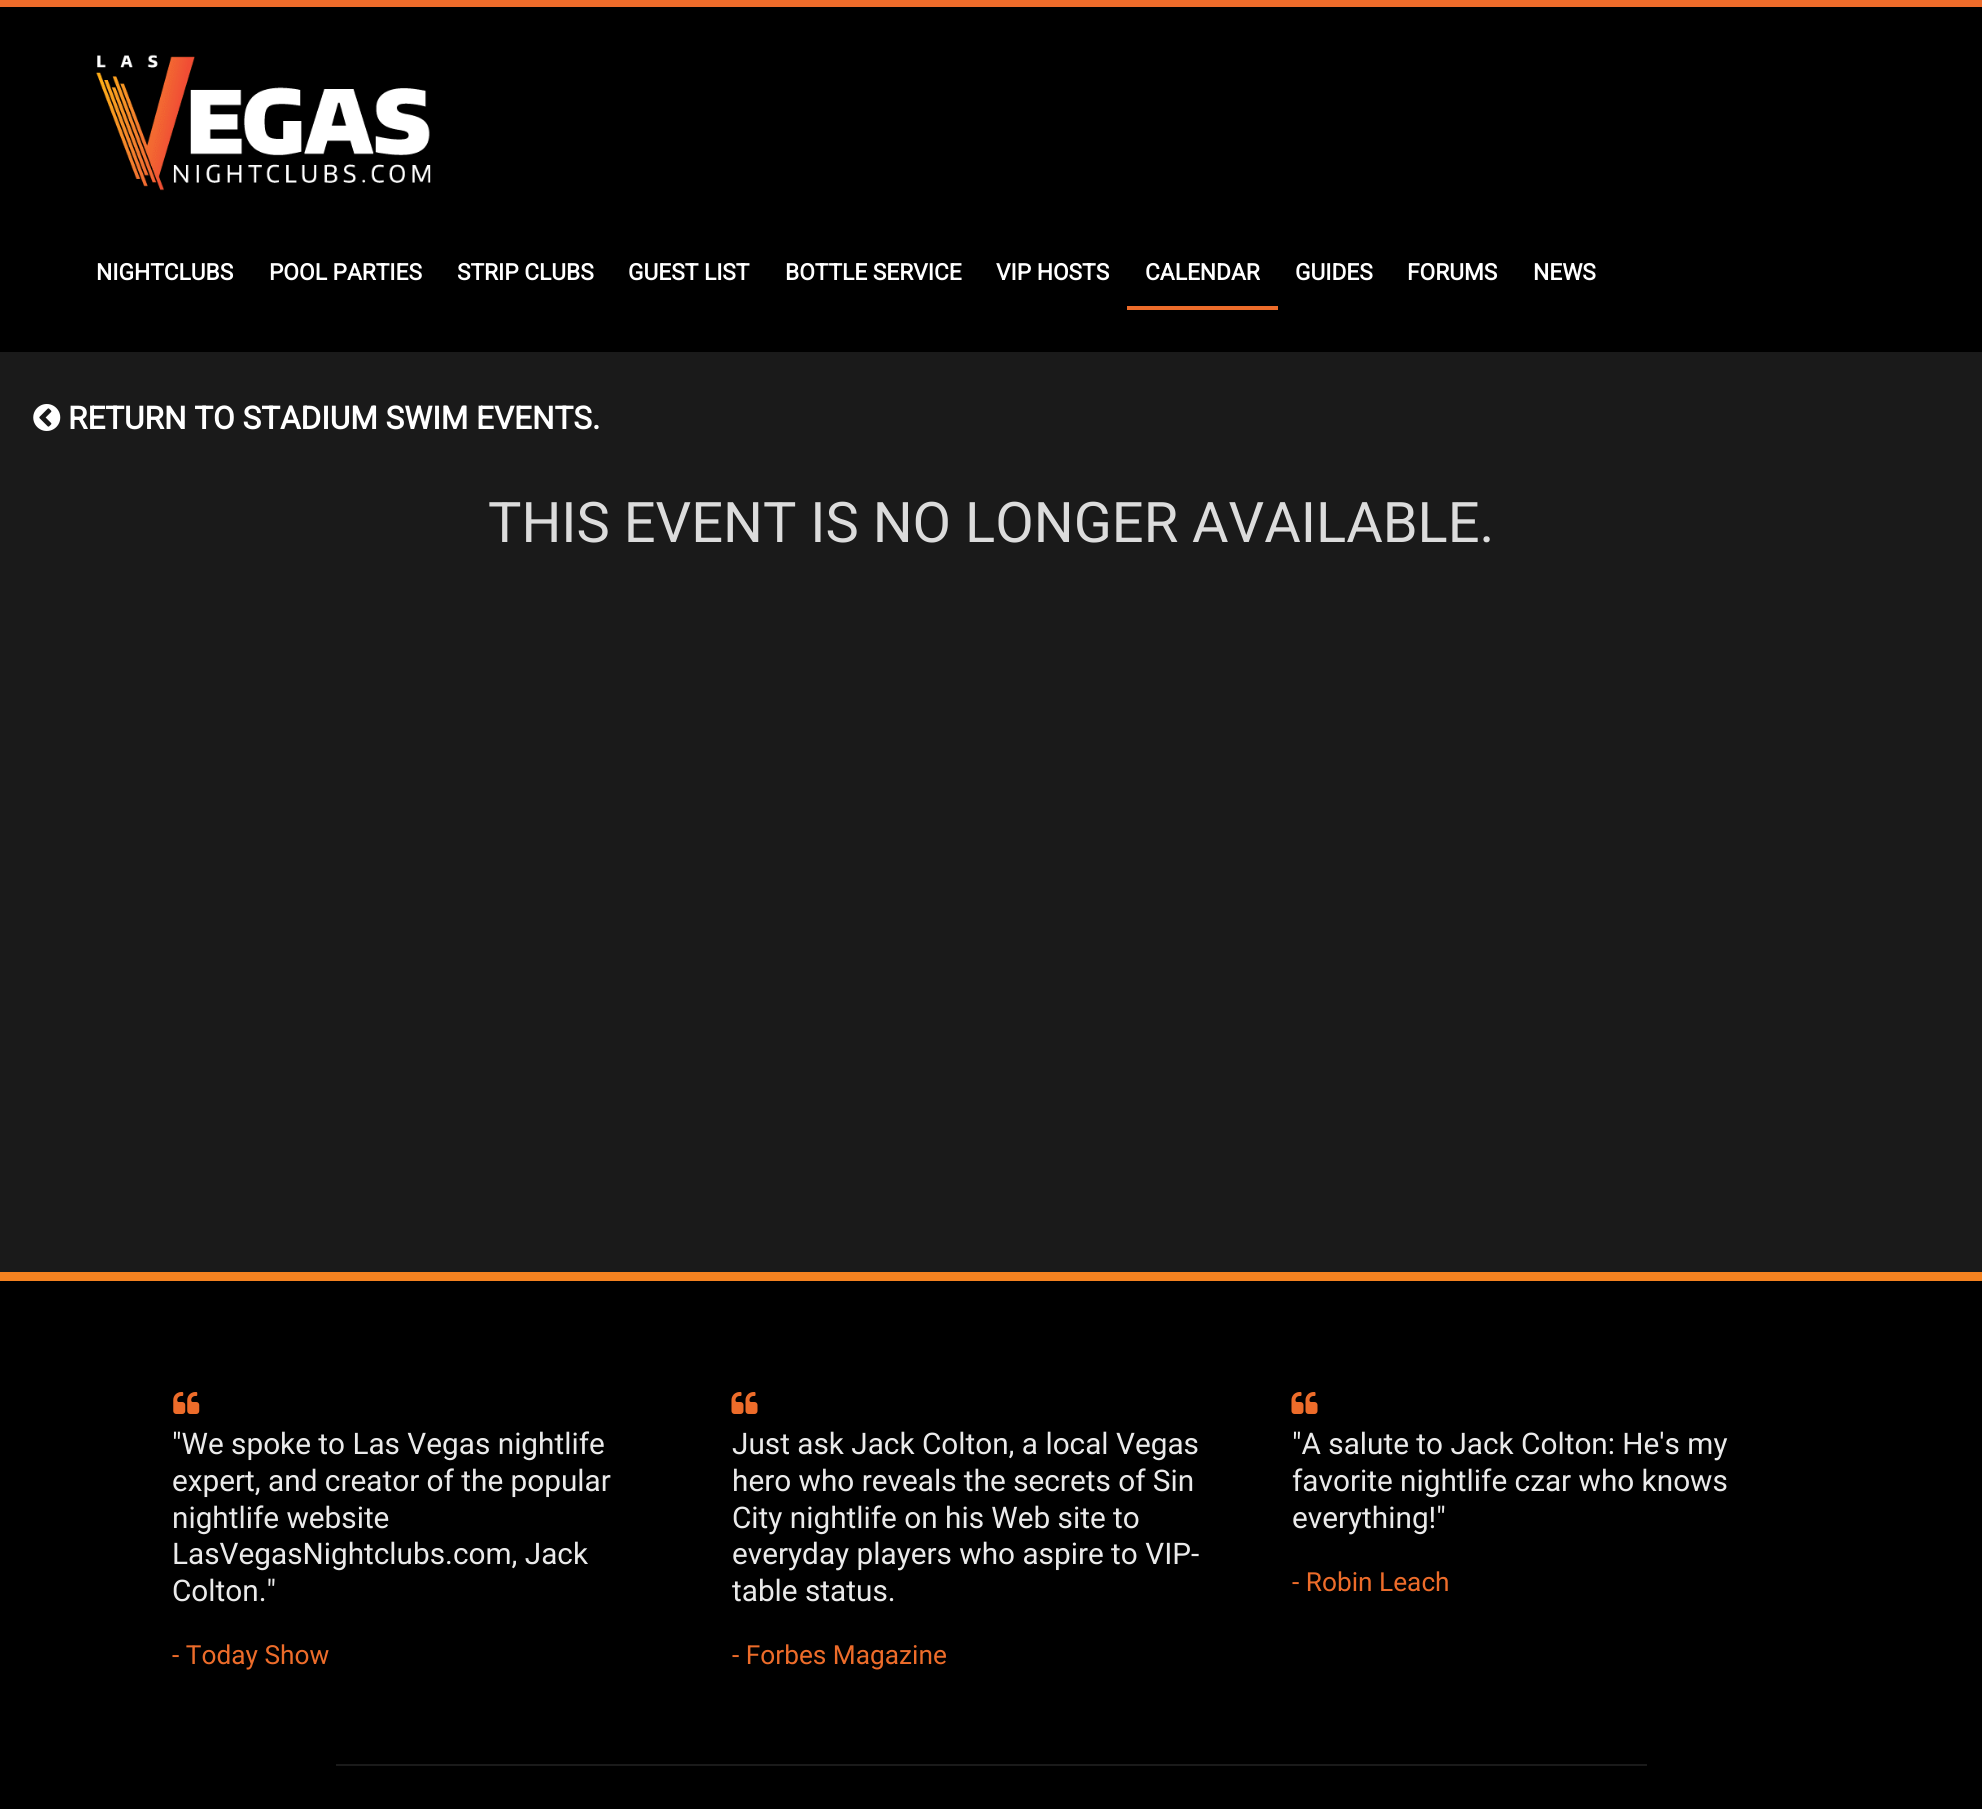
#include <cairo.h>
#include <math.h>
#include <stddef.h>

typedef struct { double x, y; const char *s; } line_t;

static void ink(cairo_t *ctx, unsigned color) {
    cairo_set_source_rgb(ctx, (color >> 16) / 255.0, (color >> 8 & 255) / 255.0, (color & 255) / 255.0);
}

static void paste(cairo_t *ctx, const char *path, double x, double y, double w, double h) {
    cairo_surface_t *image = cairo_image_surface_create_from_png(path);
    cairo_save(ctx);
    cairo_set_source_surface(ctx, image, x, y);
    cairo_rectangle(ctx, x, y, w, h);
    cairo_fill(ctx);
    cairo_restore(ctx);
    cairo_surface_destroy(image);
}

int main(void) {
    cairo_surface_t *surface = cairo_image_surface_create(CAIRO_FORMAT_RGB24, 1982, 1809);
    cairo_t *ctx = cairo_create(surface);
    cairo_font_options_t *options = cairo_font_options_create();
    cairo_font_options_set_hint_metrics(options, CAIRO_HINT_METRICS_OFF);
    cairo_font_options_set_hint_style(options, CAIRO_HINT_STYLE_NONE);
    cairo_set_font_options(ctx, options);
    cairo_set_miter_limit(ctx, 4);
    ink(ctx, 0x1A1A1A);
    cairo_paint(ctx);
    ink(ctx, 0xEE6B2A);
    cairo_rectangle(ctx, 0, 0, 1982, 7);
    cairo_fill(ctx);
    ink(ctx, 0x000000);
    cairo_rectangle(ctx, 0, 7, 1982, 345);
    cairo_fill(ctx);
    paste(ctx, "media/1.png", 96, 54, 335, 137);
    cairo_select_font_face(ctx, "Roboto", CAIRO_FONT_SLANT_NORMAL, CAIRO_FONT_WEIGHT_BOLD);
    cairo_set_font_size(ctx, 22.75);
    ink(ctx, 0xFFFFFF);
    {
        static const line_t items[] = {
            {96, 280, "NIGHTCLUBS"},
            {269, 280, "POOL PARTIES"},
            {457, 280, "STRIP CLUBS"},
            {628, 280, "GUEST LIST"},
            {785, 280, "BOTTLE SERVICE"},
            {996, 280, "VIP HOSTS"},
        };
        for (size_t i = 0; i < sizeof items / sizeof *items; i++) {
            cairo_move_to(ctx, items[i].x, items[i].y);
            cairo_show_text(ctx, items[i].s);
        }
    }
    ink(ctx, 0xED6C2A);
    cairo_rectangle(ctx, 1127, 306, 151, 4);
    cairo_fill(ctx);
    ink(ctx, 0xFFFFFF);
    {
        static const line_t items[] = {
            {1145, 280, "CALENDAR"},
            {1295, 280, "GUIDES"},
            {1407, 280, "FORUMS"},
            {1533, 280, "NEWS"},
        };
        for (size_t i = 0; i < sizeof items / sizeof *items; i++) {
            cairo_move_to(ctx, items[i].x, items[i].y);
            cairo_show_text(ctx, items[i].s);
        }
    }
    paste(ctx, "media/2.png", 33, 404, 28, 27);
    cairo_set_font_size(ctx, 31.5);
    cairo_move_to(ctx, 68, 429);
    cairo_show_text(ctx, "RETURN TO STADIUM SWIM EVENTS.");
    cairo_select_font_face(ctx, "Roboto", CAIRO_FONT_SLANT_NORMAL, CAIRO_FONT_WEIGHT_NORMAL);
    cairo_set_font_size(ctx, 56);
    ink(ctx, 0xDCDCDC);
    cairo_move_to(ctx, 488, 542);
    cairo_show_text(ctx, "THIS EVENT IS NO LONGER AVAILABLE.");
    ink(ctx, 0x000000);
    cairo_rectangle(ctx, 0, 1281, 1982, 528);
    cairo_fill(ctx);
    ink(ctx, 0xF58220);
    cairo_rectangle(ctx, 0, 1272, 1982, 9);
    cairo_fill(ctx);
    paste(ctx, "media/3.png", 173, 1392, 27, 22);
    cairo_set_font_size(ctx, 29.75);
    ink(ctx, 0xEAEAEA);
    {
        static const line_t items[] = {
            {172, 1454, "\"We spoke to Las Vegas nightlife"},
            {172, 1491, "expert, and creator of the popular"},
            {172, 1528, "nightlife website"},
            {172, 1564, "LasVegasNightclubs.com, Jack"},
            {172, 1601, "Colton.\""},
        };
        for (size_t i = 0; i < sizeof items / sizeof *items; i++) {
            cairo_move_to(ctx, items[i].x, items[i].y);
            cairo_show_text(ctx, items[i].s);
        }
    }
    cairo_set_font_size(ctx, 26.25);
    ink(ctx, 0xED6C2A);
    cairo_move_to(ctx, 172, 1664);
    cairo_show_text(ctx, "- Today Show");
    paste(ctx, "media/4.png", 731, 1392, 27, 22);
    cairo_set_font_size(ctx, 29.75);
    ink(ctx, 0xEAEAEA);
    {
        static const line_t items[] = {
            {732, 1454, "Just ask Jack Colton, a local Vegas"},
            {732, 1491, "hero who reveals the secrets of Sin"},
            {732, 1528, "City nightlife on his Web site to"},
            {732, 1564, "everyday players who aspire to VIP-"},
            {732, 1601, "table status."},
        };
        for (size_t i = 0; i < sizeof items / sizeof *items; i++) {
            cairo_move_to(ctx, items[i].x, items[i].y);
            cairo_show_text(ctx, items[i].s);
        }
    }
    cairo_set_font_size(ctx, 26.25);
    ink(ctx, 0xED6C2A);
    cairo_move_to(ctx, 732, 1664);
    cairo_show_text(ctx, "- Forbes Magazine");
    paste(ctx, "media/4.png", 1291, 1392, 27, 22);
    cairo_set_font_size(ctx, 29.75);
    ink(ctx, 0xEAEAEA);
    {
        static const line_t items[] = {
            {1292, 1454, "\"A salute to Jack Colton: He's my"},
            {1292, 1491, "favorite nightlife czar who knows"},
            {1292, 1528, "everything!\""},
        };
        for (size_t i = 0; i < sizeof items / sizeof *items; i++) {
            cairo_move_to(ctx, items[i].x, items[i].y);
            cairo_show_text(ctx, items[i].s);
        }
    }
    cairo_set_font_size(ctx, 26.25);
    ink(ctx, 0xED6C2A);
    cairo_move_to(ctx, 1292, 1591);
    cairo_show_text(ctx, "- Robin Leach");
    ink(ctx, 0x1A1A1A);
    cairo_rectangle(ctx, 336, 1764, 1311, 2);
    cairo_fill(ctx);
    cairo_surface_write_to_png(surface, "image.png");
    cairo_font_options_destroy(options);
    cairo_destroy(ctx);
    cairo_surface_destroy(surface);
    return 0;
}
